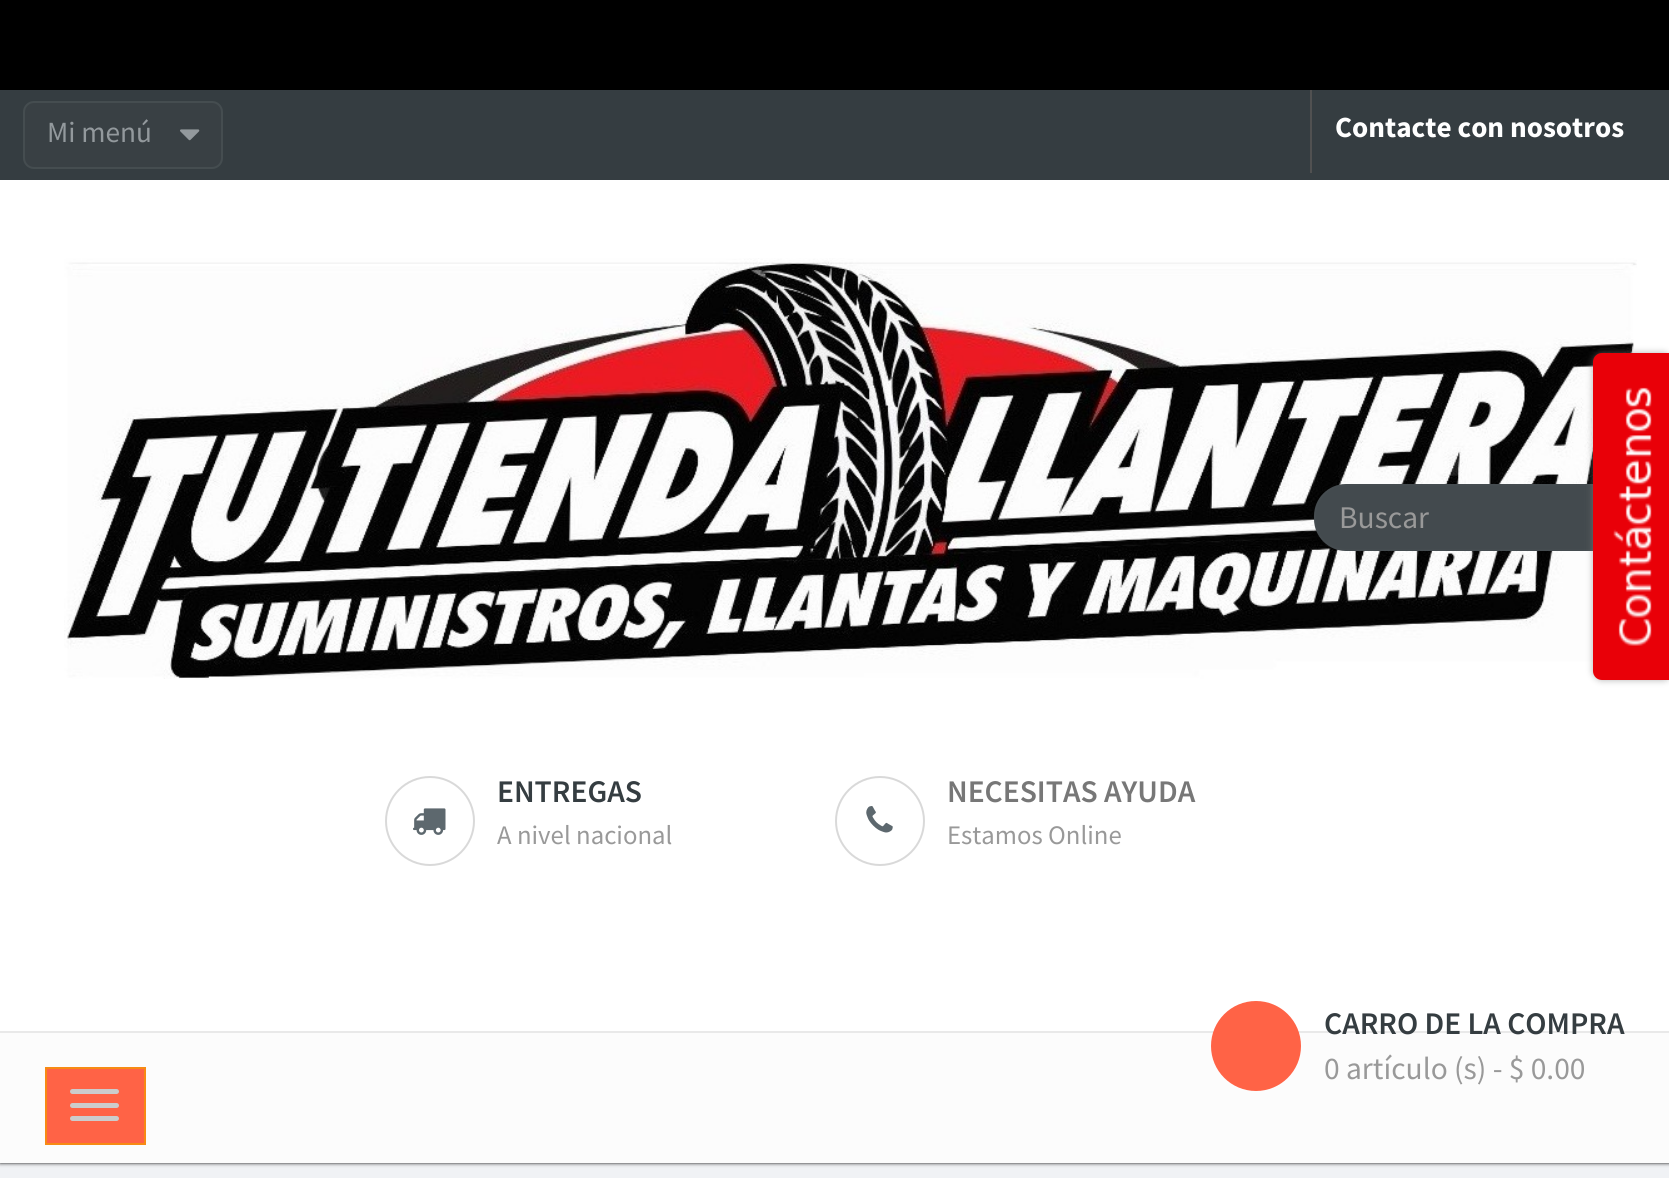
#include <cairo.h>
#include <math.h>
#include <stddef.h>

typedef struct { double x, y, w, h; unsigned color; } box_t;

static void ink(cairo_t *ctx, unsigned color) {
    cairo_set_source_rgb(ctx, (color >> 16) / 255.0, (color >> 8 & 255) / 255.0, (color & 255) / 255.0);
}

static void round_path(cairo_t *ctx, double x, double y, double w, double h, double r) {
    cairo_new_sub_path(ctx);
    cairo_arc(ctx, x + w - r, y + h - r, r, 0, M_PI / 2);
    cairo_arc(ctx, x + r, y + h - r, r, M_PI / 2, M_PI);
    cairo_arc(ctx, x + r, y + r, r, M_PI, 1.5 * M_PI);
    cairo_arc(ctx, x + w - r, y + r, r, 1.5 * M_PI, 2 * M_PI);
    cairo_close_path(ctx);
}

static void blur_box(cairo_t *ctx, double x, double y, double w, double h, double r, double blur, double alpha) {
    cairo_push_group_with_content(ctx, CAIRO_CONTENT_ALPHA);
    cairo_set_operator(ctx, CAIRO_OPERATOR_SOURCE);
    for (int i = 15; i >= -15 && fmin(w, h) + blur * i / 3 > 0; i -= 2) {
        double e = blur * i / 6;
        cairo_set_source_rgba(ctx, 0, 0, 0, alpha * erfc((i - 1) / 8.5) / 2);
        round_path(ctx, x - e, y - e, w + 2 * e, h + 2 * e, fmax(0, fmin(r + e + blur * .6, fmin(w, h) / 2 + e)));
        cairo_fill(ctx);
    }
    cairo_pattern_t *soft = cairo_pop_group(ctx);
    cairo_mask(ctx, soft);
    cairo_pattern_destroy(soft);
}

static void paste(cairo_t *ctx, const char *path, double x, double y, double w, double h) {
    cairo_surface_t *image = cairo_image_surface_create_from_png(path);
    cairo_save(ctx);
    cairo_set_source_surface(ctx, image, x, y);
    cairo_rectangle(ctx, x, y, w, h);
    cairo_fill(ctx);
    cairo_restore(ctx);
    cairo_surface_destroy(image);
}

int main(void) {
    cairo_surface_t *surface = cairo_image_surface_create(CAIRO_FORMAT_RGB24, 1669, 1178);
    cairo_t *ctx = cairo_create(surface);
    cairo_font_options_t *options = cairo_font_options_create();
    cairo_font_options_set_hint_metrics(options, CAIRO_HINT_METRICS_OFF);
    cairo_font_options_set_hint_style(options, CAIRO_HINT_STYLE_NONE);
    cairo_set_font_options(ctx, options);
    cairo_set_miter_limit(ctx, 4);
    ink(ctx, 0xF0F2F5);
    cairo_paint(ctx);
    ink(ctx, 0x121212);
    blur_box(ctx, 0, 0, 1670, 1163, 0, 2, 1);
    {
        static const box_t items[] = {
            {0, 180, 1669, 851, 0xFFFFFF},
            {0, 90, 1669, 90, 0x353D41},
            {0, 0, 1669, 90, 0x000000},
        };
        for (size_t i = 0; i < sizeof items / sizeof *items; i++) {
            ink(ctx, items[i].color);
            cairo_rectangle(ctx, items[i].x, items[i].y, items[i].w, items[i].h);
            cairo_fill(ctx);
        }
    }
    ink(ctx, 0x394044);
    round_path(ctx, 24, 102, 198, 66, 10);
    cairo_fill_preserve(ctx);
    ink(ctx, 0x454D50);
    cairo_stroke(ctx);
    cairo_select_font_face(ctx, "Source Sans Pro", CAIRO_FONT_SLANT_NORMAL, CAIRO_FONT_WEIGHT_NORMAL);
    cairo_set_font_size(ctx, 29.25);
    ink(ctx, 0x93999D);
    cairo_move_to(ctx, 47, 142);
    cairo_show_text(ctx, "Mi menú");
    paste(ctx, "media/1.png", 180, 129, 20, 12);
    ink(ctx, 0x515151);
    cairo_rectangle(ctx, 1310, 90, 2, 83);
    cairo_fill(ctx);
    cairo_select_font_face(ctx, "Source Sans Pro", CAIRO_FONT_SLANT_NORMAL, CAIRO_FONT_WEIGHT_BOLD);
    ink(ctx, 0xFFFFFF);
    cairo_move_to(ctx, 1335, 137);
    cairo_show_text(ctx, "Contacte con nosotros");
    paste(ctx, "media/2.png", 64, 258, 1573, 421);
    ink(ctx, 0x434A4E);
    round_path(ctx, 1315, 485, 342, 65, 31);
    cairo_fill_preserve(ctx);
    ink(ctx, 0x454C50);
    cairo_stroke(ctx);
    cairo_select_font_face(ctx, "Source Sans Pro", CAIRO_FONT_SLANT_NORMAL, CAIRO_FONT_WEIGHT_NORMAL);
    cairo_set_font_size(ctx, 31.5);
    ink(ctx, 0x999999);
    cairo_move_to(ctx, 1339, 528);
    cairo_show_text(ctx, "Buscar");
    cairo_new_path(ctx);
    cairo_arc(ctx, 430, 821, 44, 0, 2 * M_PI);
    ink(ctx, 0xD9D9D9);
    cairo_stroke(ctx);
    paste(ctx, "media/3.png", 413, 808, 33, 27);
    cairo_select_font_face(ctx, "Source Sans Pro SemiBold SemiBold", CAIRO_FONT_SLANT_NORMAL, CAIRO_FONT_WEIGHT_NORMAL);
    ink(ctx, 0x353D41);
    cairo_move_to(ctx, 497, 802);
    cairo_show_text(ctx, "ENTREGAS");
    cairo_select_font_face(ctx, "Source Sans Pro", CAIRO_FONT_SLANT_NORMAL, CAIRO_FONT_WEIGHT_NORMAL);
    cairo_set_font_size(ctx, 26.75);
    ink(ctx, 0x999999);
    cairo_move_to(ctx, 497, 844);
    cairo_show_text(ctx, "A nivel nacional");
    cairo_new_path(ctx);
    cairo_arc(ctx, 880, 821, 44, 0, 2 * M_PI);
    ink(ctx, 0xD9D9D9);
    cairo_stroke(ctx);
    paste(ctx, "media/4.png", 866, 806, 27, 27);
    cairo_select_font_face(ctx, "Source Sans Pro SemiBold SemiBold", CAIRO_FONT_SLANT_NORMAL, CAIRO_FONT_WEIGHT_NORMAL);
    cairo_set_font_size(ctx, 31.5);
    ink(ctx, 0x777777);
    cairo_move_to(ctx, 947, 802);
    cairo_show_text(ctx, "NECESITAS AYUDA");
    cairo_select_font_face(ctx, "Source Sans Pro", CAIRO_FONT_SLANT_NORMAL, CAIRO_FONT_WEIGHT_NORMAL);
    cairo_set_font_size(ctx, 26.75);
    ink(ctx, 0x999999);
    cairo_move_to(ctx, 947, 844);
    cairo_show_text(ctx, "Estamos Online");
    ink(ctx, 0xFCFCFC);
    cairo_rectangle(ctx, 0, 1033, 1669, 130);
    cairo_fill(ctx);
    ink(ctx, 0xE9E9E9);
    cairo_rectangle(ctx, 0, 1031, 1669, 2);
    cairo_fill(ctx);
    ink(ctx, 0xFF6346);
    cairo_arc(ctx, 1256, 1046, 45, 0, 2 * M_PI);
    cairo_fill(ctx);
    cairo_select_font_face(ctx, "Source Sans Pro SemiBold SemiBold", CAIRO_FONT_SLANT_NORMAL, CAIRO_FONT_WEIGHT_NORMAL);
    cairo_set_font_size(ctx, 31.5);
    ink(ctx, 0x353D41);
    cairo_move_to(ctx, 1324, 1034);
    cairo_show_text(ctx, "CARRO DE LA COMPRA");
    cairo_select_font_face(ctx, "Source Sans Pro", CAIRO_FONT_SLANT_NORMAL, CAIRO_FONT_WEIGHT_NORMAL);
    ink(ctx, 0x999999);
    cairo_move_to(ctx, 1324, 1079);
    cairo_show_text(ctx, "0 artículo (s) - $ 0.00");
    ink(ctx, 0xFF6346);
    cairo_rectangle(ctx, 46, 1068, 99, 76);
    cairo_fill_preserve(ctx);
    ink(ctx, 0xF78A14);
    cairo_stroke(ctx);
    ink(ctx, 0xCCCCCC);
    round_path(ctx, 70, 1089, 49, 5, 2.5);
    cairo_fill(ctx);
    round_path(ctx, 70, 1103, 49, 5, 2.5);
    cairo_fill(ctx);
    round_path(ctx, 70, 1116, 49, 5, 2.5);
    cairo_fill(ctx);
    ink(ctx, 0x808080);
    blur_box(ctx, 1593, 353, 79, 327, 9, 3.5, 0.6);
    ink(ctx, 0xE90008);
    cairo_new_path(ctx);
    cairo_move_to(ctx, 1602, 353);
    cairo_line_to(ctx, 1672, 353);
    cairo_line_to(ctx, 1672, 680);
    cairo_line_to(ctx, 1602, 680);
    cairo_curve_to(ctx, 1597, 680, 1593, 676, 1593, 671);
    cairo_line_to(ctx, 1593, 362);
    cairo_curve_to(ctx, 1593, 357, 1597, 353, 1602, 353);
    cairo_close_path(ctx);
    cairo_fill(ctx);
    paste(ctx, "media/5.png", 1613, 387, 39, 259);
    cairo_surface_write_to_png(surface, "image.png");
    cairo_font_options_destroy(options);
    cairo_destroy(ctx);
    cairo_surface_destroy(surface);
    return 0;
}
